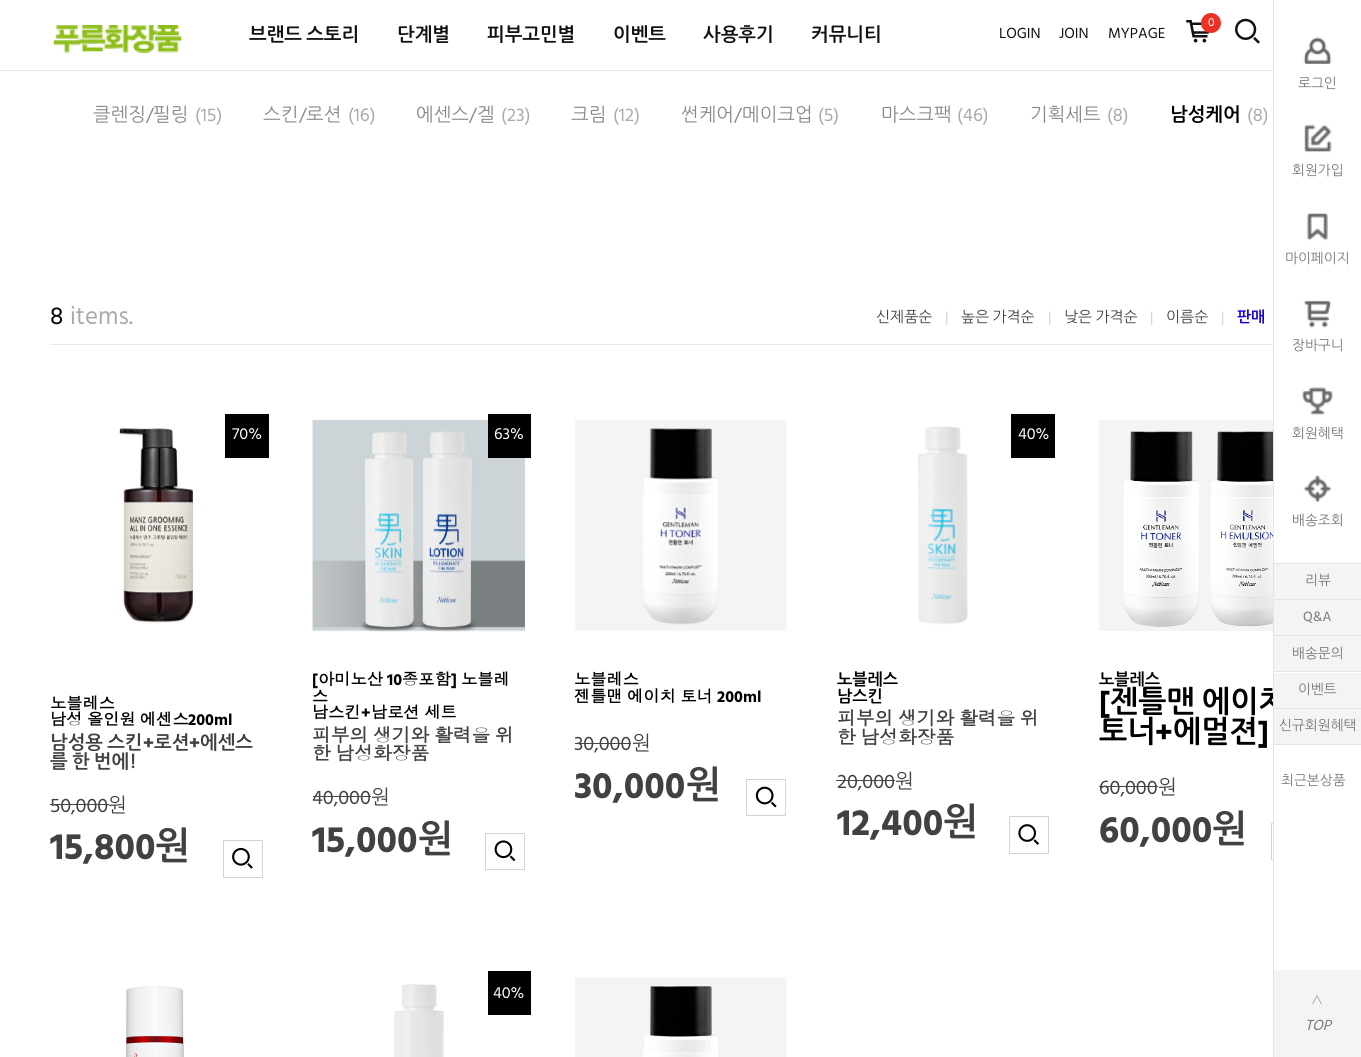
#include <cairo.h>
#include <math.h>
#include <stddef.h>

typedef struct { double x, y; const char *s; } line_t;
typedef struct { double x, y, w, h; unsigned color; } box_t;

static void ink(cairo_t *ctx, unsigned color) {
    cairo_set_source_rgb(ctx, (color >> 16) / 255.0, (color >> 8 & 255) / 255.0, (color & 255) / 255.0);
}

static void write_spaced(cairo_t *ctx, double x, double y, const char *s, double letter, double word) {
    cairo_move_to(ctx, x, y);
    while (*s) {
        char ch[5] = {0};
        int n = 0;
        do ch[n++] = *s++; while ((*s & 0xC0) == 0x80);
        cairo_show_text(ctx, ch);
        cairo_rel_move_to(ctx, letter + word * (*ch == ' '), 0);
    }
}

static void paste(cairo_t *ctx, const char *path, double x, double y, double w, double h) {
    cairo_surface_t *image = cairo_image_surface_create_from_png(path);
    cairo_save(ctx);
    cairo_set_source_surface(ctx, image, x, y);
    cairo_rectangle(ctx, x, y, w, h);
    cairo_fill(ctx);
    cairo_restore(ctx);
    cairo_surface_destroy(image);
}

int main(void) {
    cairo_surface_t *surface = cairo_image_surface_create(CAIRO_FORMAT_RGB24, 1361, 1057);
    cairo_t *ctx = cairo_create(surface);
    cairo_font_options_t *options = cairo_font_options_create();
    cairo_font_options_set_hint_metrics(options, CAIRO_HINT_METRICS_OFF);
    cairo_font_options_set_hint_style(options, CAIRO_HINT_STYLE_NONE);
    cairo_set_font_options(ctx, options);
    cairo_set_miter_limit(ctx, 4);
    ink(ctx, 0xFFFFFF);
    cairo_paint(ctx);
    ink(ctx, 0xE8E8E8);
    cairo_rectangle(ctx, 0, 70, 1273, 1);
    cairo_fill(ctx);
    paste(ctx, "media/1.png", 53, 25, 129, 28);
    cairo_select_font_face(ctx, "NanumGothic", CAIRO_FONT_SLANT_NORMAL, CAIRO_FONT_WEIGHT_BOLD);
    cairo_set_font_size(ctx, 18.75);
    ink(ctx, 0x111111);
    write_spaced(ctx, 249, 41, "브랜드 스토리", 0, -1);
    {
        static const line_t items[] = {
            {397, 41, "단계별"},
            {487, 41, "피부고민별"},
            {613, 41, "이벤트"},
            {703, 41, "사용후기"},
            {811, 41, "커뮤니티"},
        };
        for (size_t i = 0; i < sizeof items / sizeof *items; i++) {
            cairo_move_to(ctx, items[i].x, items[i].y);
            cairo_show_text(ctx, items[i].s);
        }
    }
    cairo_select_font_face(ctx, "Hind", CAIRO_FONT_SLANT_NORMAL, CAIRO_FONT_WEIGHT_NORMAL);
    cairo_set_font_size(ctx, 15);
    {
        static const line_t items[] = {
            {999, 38, "LOGIN"},
            {1059, 38, "JOIN"},
            {1108, 38, "MYPAGE"},
        };
        for (size_t i = 0; i < sizeof items / sizeof *items; i++) {
            cairo_move_to(ctx, items[i].x, items[i].y);
            cairo_show_text(ctx, items[i].s);
        }
    }
    paste(ctx, "media/2.png", 1186, 20, 24, 23);
    ink(ctx, 0xEB3123);
    cairo_arc(ctx, 1211, 23, 10, 0, 2 * M_PI);
    cairo_fill(ctx);
    cairo_set_font_size(ctx, 12);
    ink(ctx, 0xFFFFFF);
    cairo_move_to(ctx, 1208, 26);
    cairo_show_text(ctx, "0");
    paste(ctx, "media/3.png", 1235, 18, 25, 26);
    cairo_select_font_face(ctx, "NanumGothic", CAIRO_FONT_SLANT_NORMAL, CAIRO_FONT_WEIGHT_NORMAL);
    cairo_set_font_size(ctx, 18.75);
    ink(ctx, 0x898989);
    cairo_move_to(ctx, 93, 121);
    cairo_show_text(ctx, "클렌징");
    cairo_select_font_face(ctx, "Hind", CAIRO_FONT_SLANT_NORMAL, CAIRO_FONT_WEIGHT_NORMAL);
    cairo_move_to(ctx, 146, 121);
    cairo_show_text(ctx, "/");
    cairo_select_font_face(ctx, "NanumGothic", CAIRO_FONT_SLANT_NORMAL, CAIRO_FONT_WEIGHT_NORMAL);
    cairo_move_to(ctx, 153, 121);
    cairo_show_text(ctx, "필링");
    cairo_select_font_face(ctx, "Hind", CAIRO_FONT_SLANT_NORMAL, CAIRO_FONT_WEIGHT_NORMAL);
    ink(ctx, 0xAAAAAA);
    cairo_move_to(ctx, 195, 121);
    cairo_show_text(ctx, "(15)");
    cairo_select_font_face(ctx, "NanumGothic", CAIRO_FONT_SLANT_NORMAL, CAIRO_FONT_WEIGHT_NORMAL);
    ink(ctx, 0x898989);
    cairo_move_to(ctx, 263, 121);
    cairo_show_text(ctx, "스킨");
    cairo_select_font_face(ctx, "Hind", CAIRO_FONT_SLANT_NORMAL, CAIRO_FONT_WEIGHT_NORMAL);
    cairo_move_to(ctx, 299, 121);
    cairo_show_text(ctx, "/");
    cairo_select_font_face(ctx, "NanumGothic", CAIRO_FONT_SLANT_NORMAL, CAIRO_FONT_WEIGHT_NORMAL);
    cairo_move_to(ctx, 306, 121);
    cairo_show_text(ctx, "로션");
    cairo_select_font_face(ctx, "Hind", CAIRO_FONT_SLANT_NORMAL, CAIRO_FONT_WEIGHT_NORMAL);
    ink(ctx, 0xAAAAAA);
    cairo_move_to(ctx, 348, 121);
    cairo_show_text(ctx, "(16)");
    cairo_select_font_face(ctx, "NanumGothic", CAIRO_FONT_SLANT_NORMAL, CAIRO_FONT_WEIGHT_NORMAL);
    ink(ctx, 0x898989);
    cairo_move_to(ctx, 416, 121);
    cairo_show_text(ctx, "에센스");
    cairo_select_font_face(ctx, "Hind", CAIRO_FONT_SLANT_NORMAL, CAIRO_FONT_WEIGHT_NORMAL);
    cairo_move_to(ctx, 469, 121);
    cairo_show_text(ctx, "/");
    cairo_select_font_face(ctx, "NanumGothic", CAIRO_FONT_SLANT_NORMAL, CAIRO_FONT_WEIGHT_NORMAL);
    cairo_move_to(ctx, 477, 121);
    cairo_show_text(ctx, "겔");
    cairo_select_font_face(ctx, "Hind", CAIRO_FONT_SLANT_NORMAL, CAIRO_FONT_WEIGHT_NORMAL);
    ink(ctx, 0xAAAAAA);
    cairo_move_to(ctx, 501, 121);
    cairo_show_text(ctx, "(23)");
    cairo_select_font_face(ctx, "NanumGothic", CAIRO_FONT_SLANT_NORMAL, CAIRO_FONT_WEIGHT_NORMAL);
    ink(ctx, 0x898989);
    cairo_move_to(ctx, 571, 121);
    cairo_show_text(ctx, "크림");
    cairo_select_font_face(ctx, "Hind", CAIRO_FONT_SLANT_NORMAL, CAIRO_FONT_WEIGHT_NORMAL);
    ink(ctx, 0xAAAAAA);
    cairo_move_to(ctx, 613, 121);
    cairo_show_text(ctx, "(12)");
    cairo_select_font_face(ctx, "NanumGothic", CAIRO_FONT_SLANT_NORMAL, CAIRO_FONT_WEIGHT_NORMAL);
    ink(ctx, 0x898989);
    cairo_move_to(ctx, 681, 121);
    cairo_show_text(ctx, "썬케어");
    cairo_select_font_face(ctx, "Hind", CAIRO_FONT_SLANT_NORMAL, CAIRO_FONT_WEIGHT_NORMAL);
    cairo_move_to(ctx, 734, 121);
    cairo_show_text(ctx, "/");
    cairo_select_font_face(ctx, "NanumGothic", CAIRO_FONT_SLANT_NORMAL, CAIRO_FONT_WEIGHT_NORMAL);
    cairo_move_to(ctx, 742, 121);
    cairo_show_text(ctx, "메이크업");
    cairo_select_font_face(ctx, "Hind", CAIRO_FONT_SLANT_NORMAL, CAIRO_FONT_WEIGHT_NORMAL);
    ink(ctx, 0xAAAAAA);
    cairo_move_to(ctx, 818, 121);
    cairo_show_text(ctx, "(5)");
    cairo_select_font_face(ctx, "NanumGothic", CAIRO_FONT_SLANT_NORMAL, CAIRO_FONT_WEIGHT_NORMAL);
    ink(ctx, 0x898989);
    cairo_move_to(ctx, 881, 121);
    cairo_show_text(ctx, "마스크팩");
    cairo_select_font_face(ctx, "Hind", CAIRO_FONT_SLANT_NORMAL, CAIRO_FONT_WEIGHT_NORMAL);
    ink(ctx, 0xAAAAAA);
    cairo_move_to(ctx, 957, 121);
    cairo_show_text(ctx, "(46)");
    cairo_select_font_face(ctx, "NanumGothic", CAIRO_FONT_SLANT_NORMAL, CAIRO_FONT_WEIGHT_NORMAL);
    ink(ctx, 0x898989);
    cairo_move_to(ctx, 1030, 121);
    cairo_show_text(ctx, "기획세트");
    cairo_select_font_face(ctx, "Hind", CAIRO_FONT_SLANT_NORMAL, CAIRO_FONT_WEIGHT_NORMAL);
    ink(ctx, 0xAAAAAA);
    cairo_move_to(ctx, 1107, 121);
    cairo_show_text(ctx, "(8)");
    cairo_select_font_face(ctx, "NanumGothic", CAIRO_FONT_SLANT_NORMAL, CAIRO_FONT_WEIGHT_BOLD);
    ink(ctx, 0x000000);
    cairo_move_to(ctx, 1170, 121);
    cairo_show_text(ctx, "남성케어");
    cairo_select_font_face(ctx, "Hind", CAIRO_FONT_SLANT_NORMAL, CAIRO_FONT_WEIGHT_NORMAL);
    ink(ctx, 0xAAAAAA);
    cairo_move_to(ctx, 1247, 121);
    cairo_show_text(ctx, "(8)");
    ink(ctx, 0xE8E8E8);
    cairo_rectangle(ctx, 50, 344, 1223, 1);
    cairo_fill(ctx);
    cairo_set_font_size(ctx, 25);
    ink(ctx, 0x000000);
    cairo_move_to(ctx, 50, 324);
    cairo_show_text(ctx, "8");
    ink(ctx, 0xAAAAAA);
    cairo_move_to(ctx, 70, 324);
    cairo_show_text(ctx, "items.");
    cairo_select_font_face(ctx, "NanumGothic", CAIRO_FONT_SLANT_NORMAL, CAIRO_FONT_WEIGHT_NORMAL);
    cairo_set_font_size(ctx, 15);
    ink(ctx, 0x424141);
    cairo_move_to(ctx, 876, 322);
    cairo_show_text(ctx, "신제품순");
    cairo_select_font_face(ctx, "Hind", CAIRO_FONT_SLANT_NORMAL, CAIRO_FONT_WEIGHT_NORMAL);
    ink(ctx, 0xCFCFCF);
    cairo_move_to(ctx, 945, 322);
    cairo_show_text(ctx, "|");
    cairo_select_font_face(ctx, "NanumGothic", CAIRO_FONT_SLANT_NORMAL, CAIRO_FONT_WEIGHT_NORMAL);
    ink(ctx, 0x424141);
    write_spaced(ctx, 961, 322, "높은 가격순", 0, -1);
    cairo_select_font_face(ctx, "Hind", CAIRO_FONT_SLANT_NORMAL, CAIRO_FONT_WEIGHT_NORMAL);
    ink(ctx, 0xCFCFCF);
    cairo_move_to(ctx, 1048, 322);
    cairo_show_text(ctx, "|");
    cairo_select_font_face(ctx, "NanumGothic", CAIRO_FONT_SLANT_NORMAL, CAIRO_FONT_WEIGHT_NORMAL);
    ink(ctx, 0x424141);
    write_spaced(ctx, 1064, 322, "낮은 가격순", 0, -1);
    cairo_select_font_face(ctx, "Hind", CAIRO_FONT_SLANT_NORMAL, CAIRO_FONT_WEIGHT_NORMAL);
    ink(ctx, 0xCFCFCF);
    cairo_move_to(ctx, 1150, 322);
    cairo_show_text(ctx, "|");
    cairo_select_font_face(ctx, "NanumGothic", CAIRO_FONT_SLANT_NORMAL, CAIRO_FONT_WEIGHT_NORMAL);
    ink(ctx, 0x424141);
    cairo_move_to(ctx, 1166, 322);
    cairo_show_text(ctx, "이름순");
    cairo_select_font_face(ctx, "Hind", CAIRO_FONT_SLANT_NORMAL, CAIRO_FONT_WEIGHT_NORMAL);
    ink(ctx, 0xCFCFCF);
    cairo_move_to(ctx, 1221, 322);
    cairo_show_text(ctx, "|");
    cairo_select_font_face(ctx, "NanumGothic", CAIRO_FONT_SLANT_NORMAL, CAIRO_FONT_WEIGHT_BOLD);
    ink(ctx, 0x1500DE);
    cairo_move_to(ctx, 1237, 322);
    cairo_show_text(ctx, "판매");
    ink(ctx, 0x000000);
    cairo_rectangle(ctx, 225, 414, 44, 44);
    cairo_fill(ctx);
    cairo_select_font_face(ctx, "Hind", CAIRO_FONT_SLANT_NORMAL, CAIRO_FONT_WEIGHT_NORMAL);
    cairo_set_font_size(ctx, 16.25);
    ink(ctx, 0xFFFFFF);
    cairo_move_to(ctx, 232, 439);
    cairo_show_text(ctx, "70%");
    paste(ctx, "media/4.png", 119, 428, 74, 195);
    cairo_select_font_face(ctx, "Dotum", CAIRO_FONT_SLANT_NORMAL, CAIRO_FONT_WEIGHT_BOLD);
    ink(ctx, 0x000000);
    cairo_move_to(ctx, 50, 709);
    cairo_show_text(ctx, "노블레스");
    write_spaced(ctx, 50, 725, "남성 올인원 에센스", 0, -1);
    cairo_select_font_face(ctx, "Hind", CAIRO_FONT_SLANT_NORMAL, CAIRO_FONT_WEIGHT_BOLD);
    cairo_move_to(ctx, 188, 725);
    cairo_show_text(ctx, "200ml");
    cairo_select_font_face(ctx, "NanumGothic", CAIRO_FONT_SLANT_NORMAL, CAIRO_FONT_WEIGHT_BOLD);
    cairo_set_font_size(ctx, 18.75);
    ink(ctx, 0x424141);
    write_spaced(ctx, 50, 749, "남성용 스킨", 0, -1);
    cairo_select_font_face(ctx, "Hind", CAIRO_FONT_SLANT_NORMAL, CAIRO_FONT_WEIGHT_BOLD);
    cairo_move_to(ctx, 143, 749);
    cairo_show_text(ctx, "+");
    cairo_select_font_face(ctx, "NanumGothic", CAIRO_FONT_SLANT_NORMAL, CAIRO_FONT_WEIGHT_BOLD);
    cairo_move_to(ctx, 154, 749);
    cairo_show_text(ctx, "로션");
    cairo_select_font_face(ctx, "Hind", CAIRO_FONT_SLANT_NORMAL, CAIRO_FONT_WEIGHT_BOLD);
    cairo_move_to(ctx, 189, 749);
    cairo_show_text(ctx, "+");
    cairo_select_font_face(ctx, "NanumGothic", CAIRO_FONT_SLANT_NORMAL, CAIRO_FONT_WEIGHT_BOLD);
    cairo_move_to(ctx, 200, 749);
    cairo_show_text(ctx, "에센스");
    write_spaced(ctx, 50, 768, "를 한 번에!", 0, -1);
    cairo_select_font_face(ctx, "Hind", CAIRO_FONT_SLANT_NORMAL, CAIRO_FONT_WEIGHT_NORMAL);
    cairo_set_font_size(ctx, 20);
    cairo_move_to(ctx, 50, 812);
    cairo_show_text(ctx, "50,000");
    ink(ctx, 0x464646);
    cairo_rectangle(ctx, 50, 804, 59, 1);
    cairo_fill(ctx);
    cairo_select_font_face(ctx, "NanumGothic", CAIRO_FONT_SLANT_NORMAL, CAIRO_FONT_WEIGHT_NORMAL);
    ink(ctx, 0x424141);
    cairo_move_to(ctx, 108, 812);
    cairo_show_text(ctx, "원");
    cairo_select_font_face(ctx, "Hind", CAIRO_FONT_SLANT_NORMAL, CAIRO_FONT_WEIGHT_BOLD);
    cairo_set_font_size(ctx, 37.5);
    cairo_move_to(ctx, 50, 859);
    cairo_show_text(ctx, "15,800");
    cairo_select_font_face(ctx, "NanumGothic", CAIRO_FONT_SLANT_NORMAL, CAIRO_FONT_WEIGHT_BOLD);
    cairo_move_to(ctx, 155, 859);
    cairo_show_text(ctx, "원");
    cairo_rectangle(ctx, 223.5, 840.5, 39, 37);
    ink(ctx, 0xD4D4D4);
    cairo_set_line_width(ctx, 1);
    cairo_stroke(ctx);
    paste(ctx, "media/5.png", 232, 847, 21, 22);
    paste(ctx, "media/6.png", 312, 419, 213, 213);
    ink(ctx, 0x000000);
    cairo_rectangle(ctx, 488, 414, 43, 44);
    cairo_fill(ctx);
    cairo_select_font_face(ctx, "Hind", CAIRO_FONT_SLANT_NORMAL, CAIRO_FONT_WEIGHT_NORMAL);
    cairo_set_font_size(ctx, 16.25);
    ink(ctx, 0xFFFFFF);
    cairo_move_to(ctx, 494, 439);
    cairo_show_text(ctx, "63%");
    cairo_select_font_face(ctx, "Hind", CAIRO_FONT_SLANT_NORMAL, CAIRO_FONT_WEIGHT_BOLD);
    ink(ctx, 0x000000);
    cairo_move_to(ctx, 312, 685);
    cairo_show_text(ctx, "[");
    cairo_select_font_face(ctx, "Dotum", CAIRO_FONT_SLANT_NORMAL, CAIRO_FONT_WEIGHT_BOLD);
    cairo_move_to(ctx, 318, 685);
    cairo_show_text(ctx, "아미노산");
    cairo_select_font_face(ctx, "Hind", CAIRO_FONT_SLANT_NORMAL, CAIRO_FONT_WEIGHT_BOLD);
    cairo_move_to(ctx, 387, 685);
    cairo_show_text(ctx, "10");
    cairo_select_font_face(ctx, "Dotum", CAIRO_FONT_SLANT_NORMAL, CAIRO_FONT_WEIGHT_BOLD);
    cairo_move_to(ctx, 402, 685);
    cairo_show_text(ctx, "종포함");
    cairo_select_font_face(ctx, "Hind", CAIRO_FONT_SLANT_NORMAL, CAIRO_FONT_WEIGHT_BOLD);
    cairo_move_to(ctx, 451, 685);
    cairo_show_text(ctx, "]");
    cairo_select_font_face(ctx, "Dotum", CAIRO_FONT_SLANT_NORMAL, CAIRO_FONT_WEIGHT_BOLD);
    {
        static const line_t items[] = {
            {461, 685, "노블레"},
            {312, 702, "스"},
            {312, 718, "남스킨"},
        };
        for (size_t i = 0; i < sizeof items / sizeof *items; i++) {
            cairo_move_to(ctx, items[i].x, items[i].y);
            cairo_show_text(ctx, items[i].s);
        }
    }
    cairo_select_font_face(ctx, "Hind", CAIRO_FONT_SLANT_NORMAL, CAIRO_FONT_WEIGHT_BOLD);
    cairo_move_to(ctx, 361, 718);
    cairo_show_text(ctx, "+");
    cairo_select_font_face(ctx, "Dotum", CAIRO_FONT_SLANT_NORMAL, CAIRO_FONT_WEIGHT_BOLD);
    write_spaced(ctx, 371, 718, "남로션 세트", 0, -1);
    cairo_set_font_size(ctx, 18.75);
    ink(ctx, 0x424141);
    write_spaced(ctx, 312, 742, "피부의 생기와 활력을 위", 0, -1.5);
    write_spaced(ctx, 312, 760, "한 남성화장품", 0, -1.5);
    cairo_select_font_face(ctx, "Hind", CAIRO_FONT_SLANT_NORMAL, CAIRO_FONT_WEIGHT_NORMAL);
    cairo_set_font_size(ctx, 20);
    cairo_move_to(ctx, 312, 804);
    cairo_show_text(ctx, "40,000");
    ink(ctx, 0x464646);
    cairo_rectangle(ctx, 313, 796, 58, 1);
    cairo_fill(ctx);
    cairo_select_font_face(ctx, "NanumGothic", CAIRO_FONT_SLANT_NORMAL, CAIRO_FONT_WEIGHT_NORMAL);
    ink(ctx, 0x424141);
    cairo_move_to(ctx, 371, 804);
    cairo_show_text(ctx, "원");
    cairo_select_font_face(ctx, "Hind", CAIRO_FONT_SLANT_NORMAL, CAIRO_FONT_WEIGHT_BOLD);
    cairo_set_font_size(ctx, 37.5);
    cairo_move_to(ctx, 312, 852);
    cairo_show_text(ctx, "15,000");
    cairo_select_font_face(ctx, "NanumGothic", CAIRO_FONT_SLANT_NORMAL, CAIRO_FONT_WEIGHT_BOLD);
    cairo_move_to(ctx, 418, 852);
    cairo_show_text(ctx, "원");
    cairo_rectangle(ctx, 485.5, 833.5, 39, 36);
    ink(ctx, 0xD4D4D4);
    cairo_stroke(ctx);
    paste(ctx, "media/7.png", 494, 840, 22, 22);
    ink(ctx, 0x000000);
    cairo_rectangle(ctx, 1011, 414, 44, 44);
    cairo_fill(ctx);
    cairo_select_font_face(ctx, "Hind", CAIRO_FONT_SLANT_NORMAL, CAIRO_FONT_WEIGHT_NORMAL);
    cairo_set_font_size(ctx, 16.25);
    ink(ctx, 0xFFFFFF);
    cairo_move_to(ctx, 1018, 439);
    cairo_show_text(ctx, "40%");
    paste(ctx, "media/8.png", 917, 426, 51, 199);
    cairo_select_font_face(ctx, "NanumGothic", CAIRO_FONT_SLANT_NORMAL, CAIRO_FONT_WEIGHT_BOLD);
    ink(ctx, 0x000000);
    cairo_move_to(ctx, 837, 685);
    cairo_show_text(ctx, "노블레스");
    cairo_move_to(ctx, 837, 702);
    cairo_show_text(ctx, "남스킨");
    cairo_select_font_face(ctx, "Dotum", CAIRO_FONT_SLANT_NORMAL, CAIRO_FONT_WEIGHT_BOLD);
    cairo_set_font_size(ctx, 18.75);
    ink(ctx, 0x424141);
    write_spaced(ctx, 837, 725, "피부의 생기와 활력을 위", 0, -1.5);
    write_spaced(ctx, 837, 744, "한 남성화장품", 0, -1.5);
    cairo_select_font_face(ctx, "Hind", CAIRO_FONT_SLANT_NORMAL, CAIRO_FONT_WEIGHT_NORMAL);
    cairo_set_font_size(ctx, 20);
    cairo_move_to(ctx, 837, 788);
    cairo_show_text(ctx, "20,000");
    ink(ctx, 0x464646);
    cairo_rectangle(ctx, 836, 780, 59, 1);
    cairo_fill(ctx);
    cairo_select_font_face(ctx, "NanumGothic", CAIRO_FONT_SLANT_NORMAL, CAIRO_FONT_WEIGHT_NORMAL);
    ink(ctx, 0x424141);
    cairo_move_to(ctx, 895, 788);
    cairo_show_text(ctx, "원");
    cairo_select_font_face(ctx, "Hind", CAIRO_FONT_SLANT_NORMAL, CAIRO_FONT_WEIGHT_BOLD);
    cairo_set_font_size(ctx, 37.5);
    cairo_move_to(ctx, 837, 835);
    cairo_show_text(ctx, "12,400");
    cairo_select_font_face(ctx, "NanumGothic", CAIRO_FONT_SLANT_NORMAL, CAIRO_FONT_WEIGHT_BOLD);
    cairo_move_to(ctx, 943, 835);
    cairo_show_text(ctx, "원");
    cairo_rectangle(ctx, 1009.5, 816.5, 39, 37);
    ink(ctx, 0xD4D4D4);
    cairo_stroke(ctx);
    paste(ctx, "media/9.png", 1018, 824, 22, 21);
    paste(ctx, "media/10.png", 1099, 420, 174, 211);
    cairo_set_font_size(ctx, 16.25);
    ink(ctx, 0x000000);
    cairo_move_to(ctx, 1099, 685);
    cairo_show_text(ctx, "노블레스");
    cairo_select_font_face(ctx, "Hind", CAIRO_FONT_SLANT_NORMAL, CAIRO_FONT_WEIGHT_BOLD);
    cairo_set_font_size(ctx, 30);
    cairo_move_to(ctx, 1099, 712);
    cairo_show_text(ctx, "[");
    cairo_select_font_face(ctx, "NanumGothic", CAIRO_FONT_SLANT_NORMAL, CAIRO_FONT_WEIGHT_BOLD);
    write_spaced(ctx, 1110, 712, "젠틀맨 에이치", 0, -1);
    cairo_move_to(ctx, 1099, 742);
    cairo_show_text(ctx, "토너");
    cairo_select_font_face(ctx, "Hind", CAIRO_FONT_SLANT_NORMAL, CAIRO_FONT_WEIGHT_BOLD);
    cairo_move_to(ctx, 1155, 742);
    cairo_show_text(ctx, "+");
    cairo_select_font_face(ctx, "NanumGothic", CAIRO_FONT_SLANT_NORMAL, CAIRO_FONT_WEIGHT_BOLD);
    cairo_move_to(ctx, 1173, 742);
    cairo_show_text(ctx, "에멀젼");
    cairo_select_font_face(ctx, "Hind", CAIRO_FONT_SLANT_NORMAL, CAIRO_FONT_WEIGHT_BOLD);
    cairo_move_to(ctx, 1258, 742);
    cairo_show_text(ctx, "]");
    cairo_select_font_face(ctx, "Hind", CAIRO_FONT_SLANT_NORMAL, CAIRO_FONT_WEIGHT_NORMAL);
    cairo_set_font_size(ctx, 20);
    ink(ctx, 0x424141);
    cairo_move_to(ctx, 1099, 794);
    cairo_show_text(ctx, "60,000");
    ink(ctx, 0x464646);
    cairo_rectangle(ctx, 1099, 786, 59, 1);
    cairo_fill(ctx);
    cairo_select_font_face(ctx, "NanumGothic", CAIRO_FONT_SLANT_NORMAL, CAIRO_FONT_WEIGHT_NORMAL);
    ink(ctx, 0x424141);
    cairo_move_to(ctx, 1158, 794);
    cairo_show_text(ctx, "원");
    cairo_select_font_face(ctx, "Hind", CAIRO_FONT_SLANT_NORMAL, CAIRO_FONT_WEIGHT_BOLD);
    cairo_set_font_size(ctx, 37.5);
    cairo_move_to(ctx, 1099, 842);
    cairo_show_text(ctx, "60,000");
    cairo_select_font_face(ctx, "NanumGothic", CAIRO_FONT_SLANT_NORMAL, CAIRO_FONT_WEIGHT_BOLD);
    cairo_move_to(ctx, 1212, 842);
    cairo_show_text(ctx, "원");
    cairo_rectangle(ctx, 1271.5, 823.5, 39, 36);
    ink(ctx, 0xD4D4D4);
    cairo_stroke(ctx);
    paste(ctx, "media/11.png", 125, 986, 59, 71);
    paste(ctx, "media/12.png", 394, 984, 50, 73);
    ink(ctx, 0x000000);
    cairo_rectangle(ctx, 488, 971, 43, 44);
    cairo_fill(ctx);
    cairo_select_font_face(ctx, "Hind", CAIRO_FONT_SLANT_NORMAL, CAIRO_FONT_WEIGHT_NORMAL);
    cairo_set_font_size(ctx, 16.25);
    ink(ctx, 0xFFFFFF);
    cairo_move_to(ctx, 493, 998);
    cairo_show_text(ctx, "40%");
    paste(ctx, "media/13.png", 575, 977, 212, 80);
    paste(ctx, "media/14.png", 575, 420, 212, 211);
    cairo_select_font_face(ctx, "Dotum", CAIRO_FONT_SLANT_NORMAL, CAIRO_FONT_WEIGHT_BOLD);
    ink(ctx, 0x000000);
    cairo_move_to(ctx, 574, 685);
    cairo_show_text(ctx, "노블레스");
    write_spaced(ctx, 574, 702, "젠틀맨 에이치 토너", 0, -1);
    cairo_select_font_face(ctx, "Hind", CAIRO_FONT_SLANT_NORMAL, CAIRO_FONT_WEIGHT_BOLD);
    cairo_move_to(ctx, 717, 702);
    cairo_show_text(ctx, "200ml");
    cairo_select_font_face(ctx, "Hind", CAIRO_FONT_SLANT_NORMAL, CAIRO_FONT_WEIGHT_NORMAL);
    cairo_set_font_size(ctx, 20);
    ink(ctx, 0x424141);
    cairo_move_to(ctx, 574, 750);
    cairo_show_text(ctx, "30,000");
    ink(ctx, 0x464646);
    cairo_rectangle(ctx, 575, 743, 56, 1);
    cairo_fill(ctx);
    cairo_select_font_face(ctx, "NanumGothic", CAIRO_FONT_SLANT_NORMAL, CAIRO_FONT_WEIGHT_NORMAL);
    ink(ctx, 0x424141);
    cairo_move_to(ctx, 632, 750);
    cairo_show_text(ctx, "원");
    cairo_select_font_face(ctx, "Hind", CAIRO_FONT_SLANT_NORMAL, CAIRO_FONT_WEIGHT_BOLD);
    cairo_set_font_size(ctx, 37.5);
    cairo_move_to(ctx, 574, 798);
    cairo_show_text(ctx, "30,000");
    cairo_select_font_face(ctx, "NanumGothic", CAIRO_FONT_SLANT_NORMAL, CAIRO_FONT_WEIGHT_BOLD);
    cairo_move_to(ctx, 686, 798);
    cairo_show_text(ctx, "원");
    cairo_rectangle(ctx, 746.5, 779.5, 39, 36);
    ink(ctx, 0xD4D4D4);
    cairo_stroke(ctx);
    paste(ctx, "media/15.png", 755, 786, 22, 22);
    ink(ctx, 0xFFFFFF);
    cairo_rectangle(ctx, 1274, 686, 37, 174);
    cairo_fill(ctx);
    ink(ctx, 0xE3E3E3);
    cairo_rectangle(ctx, 1273, 0, 1, 1057);
    cairo_fill(ctx);
    paste(ctx, "media/16.png", 1303, 37, 29, 27);
    cairo_select_font_face(ctx, "NanumGothic", CAIRO_FONT_SLANT_NORMAL, CAIRO_FONT_WEIGHT_NORMAL);
    cairo_set_font_size(ctx, 13.75);
    ink(ctx, 0x777777);
    cairo_move_to(ctx, 1298, 88);
    cairo_show_text(ctx, "로그인");
    paste(ctx, "media/17.png", 1304, 124, 28, 29);
    cairo_move_to(ctx, 1292, 175);
    cairo_show_text(ctx, "회원가입");
    paste(ctx, "media/18.png", 1306, 213, 22, 28);
    cairo_move_to(ctx, 1285, 263);
    cairo_show_text(ctx, "마이페이지");
    paste(ctx, "media/19.png", 1303, 300, 29, 28);
    cairo_move_to(ctx, 1292, 350);
    cairo_show_text(ctx, "장바구니");
    paste(ctx, "media/20.png", 1301, 387, 32, 28);
    cairo_move_to(ctx, 1292, 438);
    cairo_show_text(ctx, "회원혜택");
    paste(ctx, "media/21.png", 1303, 475, 29, 28);
    cairo_move_to(ctx, 1292, 525);
    cairo_show_text(ctx, "배송조회");
    {
        static const box_t items[] = {
            {1274, 563, 87, 1, 0xE3E3E3},
            {1274, 599, 87, 1, 0xE3E3E3},
            {1274, 564, 87, 35, 0xF4F4F4},
        };
        for (size_t i = 0; i < sizeof items / sizeof *items; i++) {
            ink(ctx, items[i].color);
            cairo_rectangle(ctx, items[i].x, items[i].y, items[i].w, items[i].h);
            cairo_fill(ctx);
        }
    }
    ink(ctx, 0x777777);
    cairo_move_to(ctx, 1305, 585);
    cairo_show_text(ctx, "리뷰");
    ink(ctx, 0xE3E3E3);
    cairo_rectangle(ctx, 1274, 635, 87, 1);
    cairo_fill(ctx);
    ink(ctx, 0xF4F4F4);
    cairo_rectangle(ctx, 1274, 600, 87, 35);
    cairo_fill(ctx);
    cairo_select_font_face(ctx, "Hind", CAIRO_FONT_SLANT_NORMAL, CAIRO_FONT_WEIGHT_NORMAL);
    ink(ctx, 0x777777);
    cairo_move_to(ctx, 1303, 621);
    cairo_show_text(ctx, "Q&A");
    ink(ctx, 0xE3E3E3);
    cairo_rectangle(ctx, 1274, 671, 87, 1);
    cairo_fill(ctx);
    ink(ctx, 0xF4F4F4);
    cairo_rectangle(ctx, 1274, 636, 87, 35);
    cairo_fill(ctx);
    cairo_select_font_face(ctx, "NanumGothic", CAIRO_FONT_SLANT_NORMAL, CAIRO_FONT_WEIGHT_NORMAL);
    ink(ctx, 0x777777);
    cairo_move_to(ctx, 1292, 658);
    cairo_show_text(ctx, "배송문의");
    ink(ctx, 0xE3E3E3);
    cairo_rectangle(ctx, 1274, 708, 87, 1);
    cairo_fill(ctx);
    ink(ctx, 0xF4F4F4);
    cairo_rectangle(ctx, 1274, 673, 87, 35);
    cairo_fill(ctx);
    ink(ctx, 0x777777);
    cairo_move_to(ctx, 1298, 694);
    cairo_show_text(ctx, "이벤트");
    ink(ctx, 0xE3E3E3);
    cairo_rectangle(ctx, 1274, 744, 87, 1);
    cairo_fill(ctx);
    ink(ctx, 0xF4F4F4);
    cairo_rectangle(ctx, 1274, 709, 87, 35);
    cairo_fill(ctx);
    ink(ctx, 0x777777);
    cairo_move_to(ctx, 1279, 730);
    cairo_show_text(ctx, "신규회원혜택");
    cairo_move_to(ctx, 1281, 785);
    cairo_show_text(ctx, "최근본상품");
    ink(ctx, 0xF4F4F4);
    cairo_rectangle(ctx, 1274, 970, 87, 87);
    cairo_fill(ctx);
    cairo_set_font_size(ctx, 15);
    ink(ctx, 0x777777);
    cairo_move_to(ctx, 1310, 1005);
    cairo_show_text(ctx, "∧");
    cairo_select_font_face(ctx, "Hind", CAIRO_FONT_SLANT_ITALIC, CAIRO_FONT_WEIGHT_NORMAL);
    cairo_move_to(ctx, 1305, 1030);
    cairo_show_text(ctx, "TOP");
    cairo_surface_write_to_png(surface, "image.png");
    cairo_font_options_destroy(options);
    cairo_destroy(ctx);
    cairo_surface_destroy(surface);
    return 0;
}
